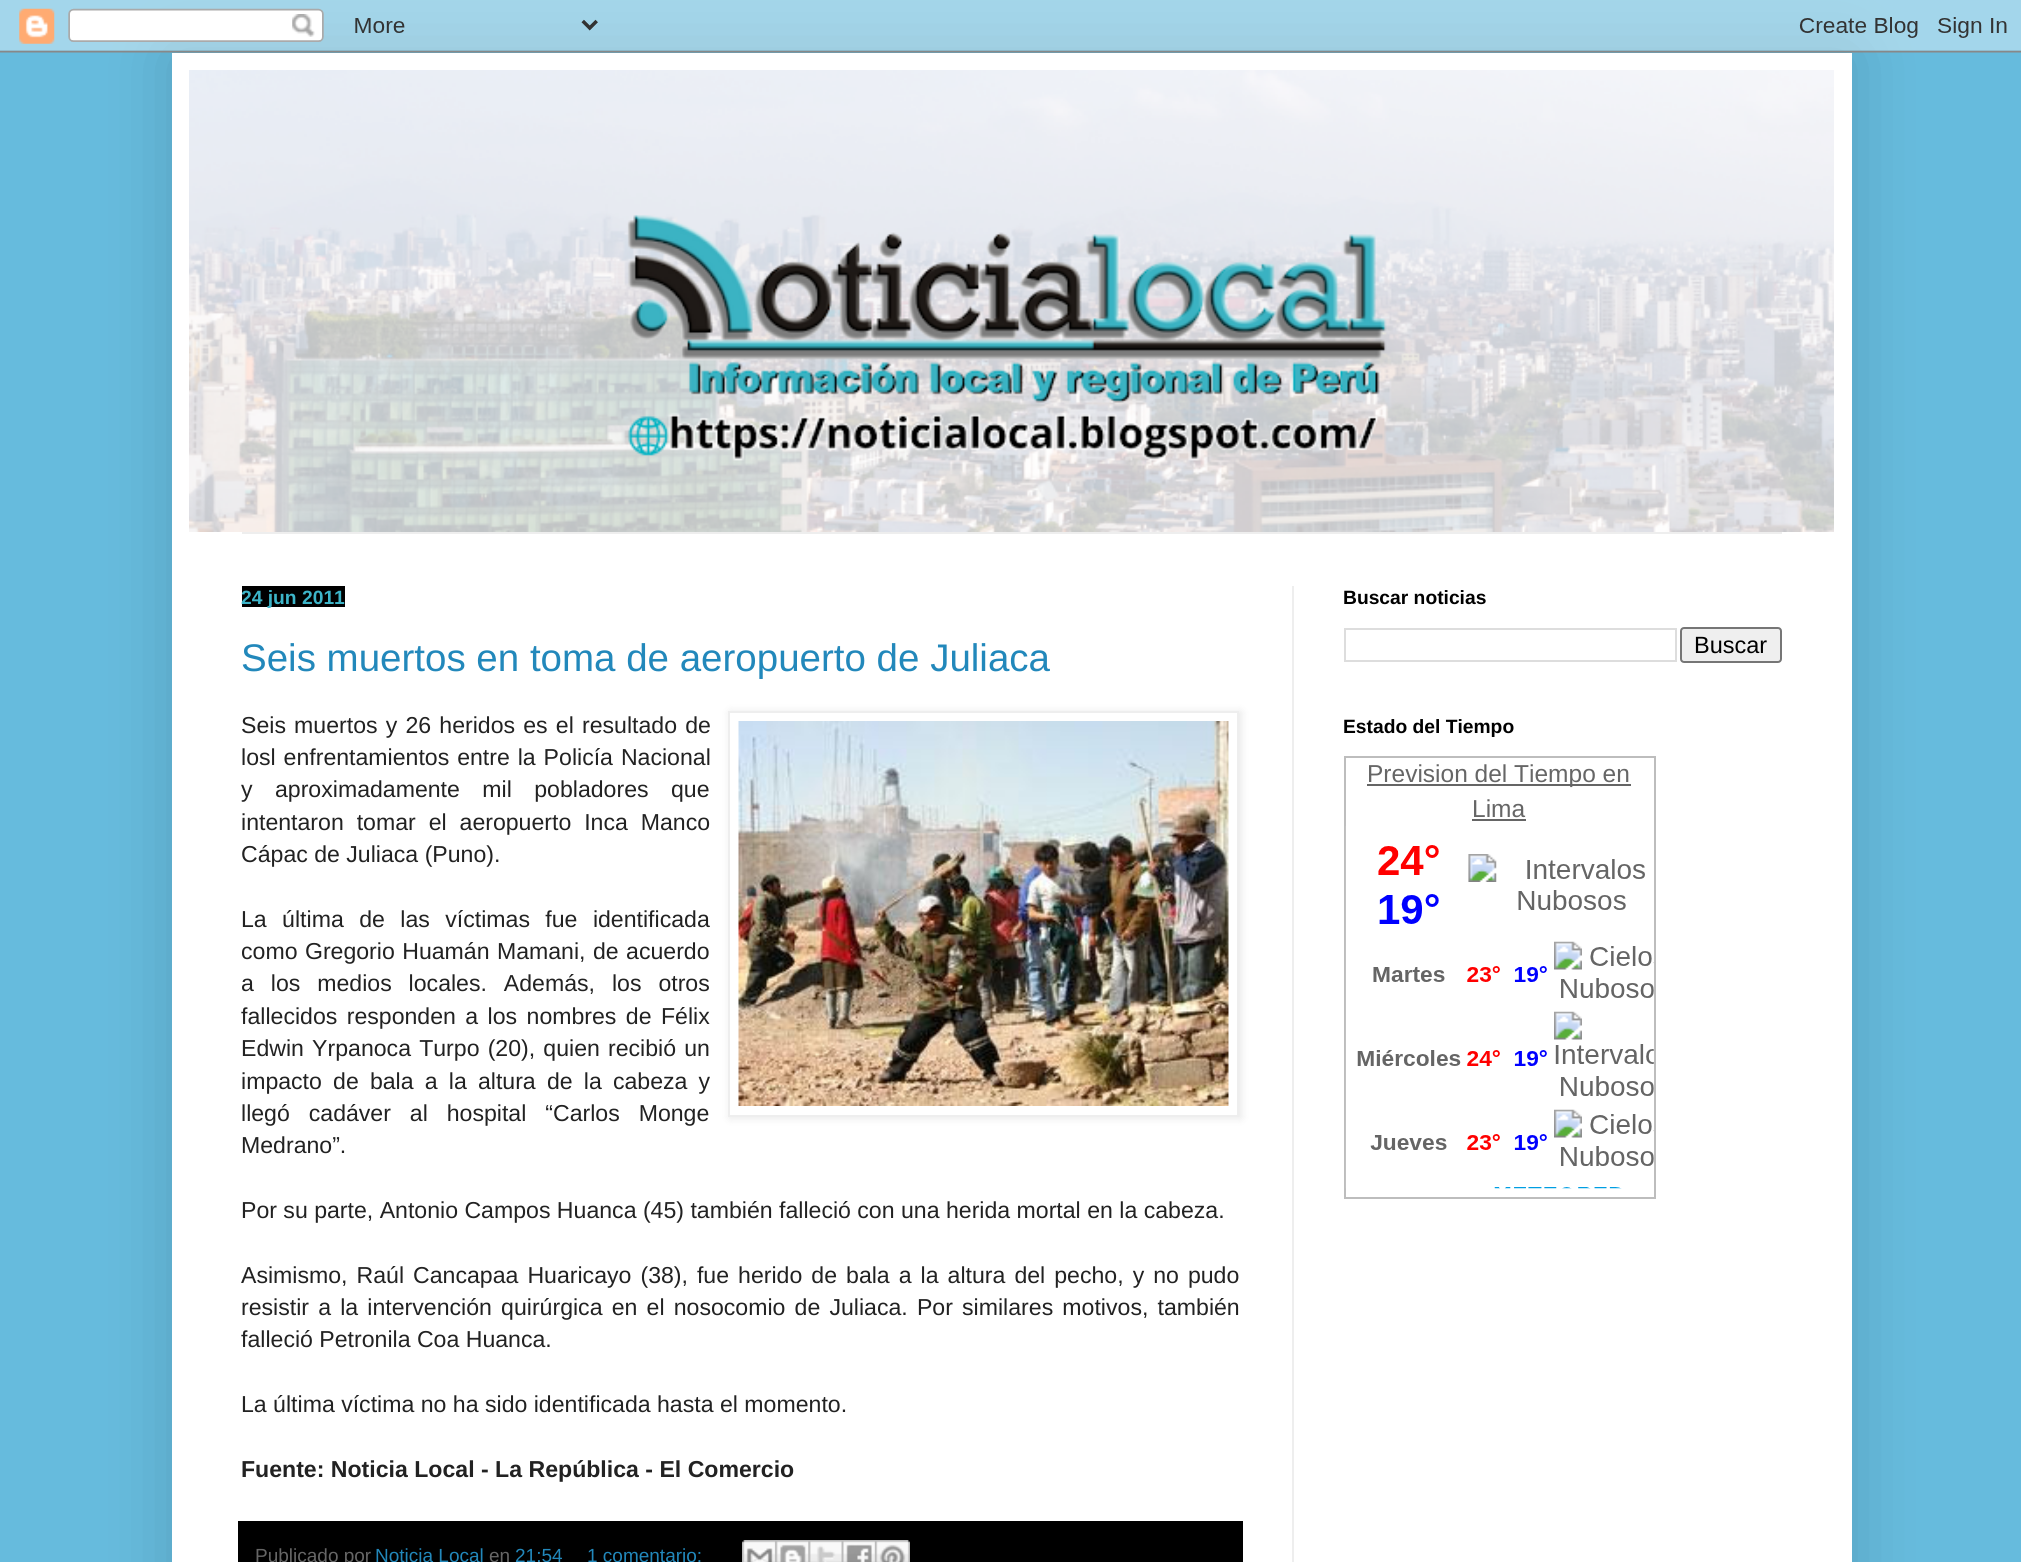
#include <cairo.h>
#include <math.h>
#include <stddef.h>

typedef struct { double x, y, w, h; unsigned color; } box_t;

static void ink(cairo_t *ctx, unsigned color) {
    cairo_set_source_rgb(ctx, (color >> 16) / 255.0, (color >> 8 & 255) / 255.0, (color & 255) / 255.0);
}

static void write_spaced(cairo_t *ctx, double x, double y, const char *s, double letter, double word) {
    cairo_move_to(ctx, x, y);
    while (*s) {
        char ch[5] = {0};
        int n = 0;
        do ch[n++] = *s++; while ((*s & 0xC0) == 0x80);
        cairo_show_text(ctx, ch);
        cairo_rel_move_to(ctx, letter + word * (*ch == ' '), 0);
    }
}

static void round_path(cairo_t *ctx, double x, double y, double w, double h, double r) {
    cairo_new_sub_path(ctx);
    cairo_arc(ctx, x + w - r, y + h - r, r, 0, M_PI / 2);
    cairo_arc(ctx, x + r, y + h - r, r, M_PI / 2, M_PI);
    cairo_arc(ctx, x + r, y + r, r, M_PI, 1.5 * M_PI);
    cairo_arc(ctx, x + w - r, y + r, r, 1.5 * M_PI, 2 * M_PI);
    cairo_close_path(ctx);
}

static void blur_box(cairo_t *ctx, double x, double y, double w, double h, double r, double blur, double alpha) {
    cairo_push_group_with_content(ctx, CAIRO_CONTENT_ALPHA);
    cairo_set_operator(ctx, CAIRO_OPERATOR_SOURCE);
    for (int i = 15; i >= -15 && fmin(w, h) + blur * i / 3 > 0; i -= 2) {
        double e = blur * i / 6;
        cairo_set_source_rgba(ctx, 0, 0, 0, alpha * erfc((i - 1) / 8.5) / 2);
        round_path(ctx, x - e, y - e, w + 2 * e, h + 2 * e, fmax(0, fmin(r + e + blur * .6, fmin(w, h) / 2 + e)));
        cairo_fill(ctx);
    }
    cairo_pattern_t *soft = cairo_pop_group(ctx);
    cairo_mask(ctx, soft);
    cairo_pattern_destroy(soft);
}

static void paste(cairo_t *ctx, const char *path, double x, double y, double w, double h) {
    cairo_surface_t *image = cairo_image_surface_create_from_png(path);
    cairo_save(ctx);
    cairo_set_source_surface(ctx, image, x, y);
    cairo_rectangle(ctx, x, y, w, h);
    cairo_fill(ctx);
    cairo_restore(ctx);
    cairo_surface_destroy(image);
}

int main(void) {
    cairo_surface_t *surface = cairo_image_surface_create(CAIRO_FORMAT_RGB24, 2021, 1562);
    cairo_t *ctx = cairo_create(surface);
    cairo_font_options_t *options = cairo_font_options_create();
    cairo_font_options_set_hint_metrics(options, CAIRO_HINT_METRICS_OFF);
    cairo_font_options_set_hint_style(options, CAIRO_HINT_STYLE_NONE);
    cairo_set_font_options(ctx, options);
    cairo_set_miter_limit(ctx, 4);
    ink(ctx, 0x66BBDD);
    cairo_paint(ctx);
    ink(ctx, 0x000000);
    blur_box(ctx, 172, 53, 1680, 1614, 0, 35, 0.15);
    paste(ctx, "media/1.png", 0, 0, 2021, 53);
    ink(ctx, 0xFFFFFF);
    cairo_rectangle(ctx, 172, 53, 1680, 1509);
    cairo_fill(ctx);
    paste(ctx, "media/2.png", 189, 70, 1645, 462);
    {
        static const box_t items[] = {
            {242, 532, 1540, 2, 0xEEEEEE},
            {1292, 586, 2, 976, 0xEEEEEE},
            {242, 586, 103, 21, 0x000000},
        };
        for (size_t i = 0; i < sizeof items / sizeof *items; i++) {
            ink(ctx, items[i].color);
            cairo_rectangle(ctx, items[i].x, items[i].y, items[i].w, items[i].h);
            cairo_fill(ctx);
        }
    }
    cairo_select_font_face(ctx, "Liberation Sans", CAIRO_FONT_SLANT_NORMAL, CAIRO_FONT_WEIGHT_BOLD);
    cairo_set_font_size(ctx, 19.25);
    ink(ctx, 0x3DB5C9);
    cairo_move_to(ctx, 241, 604);
    cairo_show_text(ctx, "24 jun 2011");
    cairo_select_font_face(ctx, "Liberation Sans", CAIRO_FONT_SLANT_NORMAL, CAIRO_FONT_WEIGHT_NORMAL);
    cairo_set_font_size(ctx, 38.5);
    ink(ctx, 0x2288BB);
    cairo_move_to(ctx, 241, 671);
    cairo_show_text(ctx, "Seis muertos en toma de aeropuerto de Juliaca");
    cairo_set_font_size(ctx, 23.1);
    ink(ctx, 0x222222);
    write_spaced(ctx, 241, 733, "Seis muertos y 26 heridos es el resultado de", 0, 1.75);
    ink(ctx, 0x000000);
    blur_box(ctx, 730, 712, 511, 406, 0, 4.5, 0.1);
    ink(ctx, 0xFFFFFF);
    cairo_rectangle(ctx, 729, 712, 509, 404);
    cairo_fill_preserve(ctx);
    ink(ctx, 0xEEEEEE);
    cairo_stroke(ctx);
    paste(ctx, "media/3.png", 738, 721, 491, 385);
    ink(ctx, 0x222222);
    write_spaced(ctx, 241, 765, "losl enfrentamientos entre la Policía Nacional", 0, 1.5);
    write_spaced(ctx, 241, 797, "y aproximadamente mil pobladores que", 0, 16);
    write_spaced(ctx, 241, 830, "intentaron tomar el aeropuerto Inca Manco", 0, 6.5);
    cairo_move_to(ctx, 241, 862);
    cairo_show_text(ctx, "Cápac de Juliaca (Puno).");
    write_spaced(ctx, 241, 927, "La última de las víctimas fue identificada", 0, 9);
    write_spaced(ctx, 241, 959, "como Gregorio Huamán Mamani, de acuerdo", 0, 1);
    write_spaced(ctx, 241, 991, "a los medios locales. Además, los otros", 0, 10.5);
    write_spaced(ctx, 241, 1024, "fallecidos responden a los nombres de Félix", 0, 3);
    write_spaced(ctx, 241, 1056, "Edwin Yrpanoca Turpo (20), quien recibió un", 0, 1.75);
    write_spaced(ctx, 241, 1089, "impacto de bala a la altura de la cabeza y", 0, 4.75);
    write_spaced(ctx, 241, 1121, "llegó cadáver al hospital “Carlos Monge", 0, 12.5);
    cairo_move_to(ctx, 241, 1153);
    cairo_show_text(ctx, "Medrano”.");
    cairo_move_to(ctx, 241, 1218);
    cairo_show_text(ctx, "Por su parte, Antonio Campos Huanca (45) también falleció con una herida mortal en la cabeza.");
    write_spaced(ctx, 241, 1283, "Asimismo, Raúl Cancapaa Huaricayo (38), fue herido de bala a la altura del pecho, y no pudo", 0, 2.6);
    write_spaced(ctx, 241, 1315, "resistir a la intervención quirúrgica en el nosocomio de Juliaca. Por similares motivos, también", 0, 2.75);
    cairo_move_to(ctx, 241, 1347);
    cairo_show_text(ctx, "falleció Petronila Coa Huanca.");
    cairo_move_to(ctx, 241, 1412);
    cairo_show_text(ctx, "La última víctima no ha sido identificada hasta el momento.");
    cairo_select_font_face(ctx, "Liberation Sans", CAIRO_FONT_SLANT_NORMAL, CAIRO_FONT_WEIGHT_BOLD);
    cairo_move_to(ctx, 241, 1477);
    cairo_show_text(ctx, "Fuente: Noticia Local - La República - El Comercio");
    ink(ctx, 0x000000);
    cairo_rectangle(ctx, 238, 1521, 1005, 41);
    cairo_fill(ctx);
    cairo_select_font_face(ctx, "Liberation Sans", CAIRO_FONT_SLANT_NORMAL, CAIRO_FONT_WEIGHT_NORMAL);
    cairo_set_font_size(ctx, 19);
    ink(ctx, 0x666666);
    cairo_move_to(ctx, 255, 1562);
    cairo_show_text(ctx, "Publicado por");
    ink(ctx, 0x2288BB);
    cairo_move_to(ctx, 375, 1562);
    cairo_show_text(ctx, "Noticia Local");
    ink(ctx, 0x666666);
    cairo_move_to(ctx, 489, 1562);
    cairo_show_text(ctx, "en");
    ink(ctx, 0x2288BB);
    cairo_move_to(ctx, 515, 1562);
    cairo_show_text(ctx, "21:54");
    cairo_move_to(ctx, 587, 1562);
    cairo_show_text(ctx, "1 comentario:");
    paste(ctx, "media/4.png", 742, 1540, 34, 22);
    paste(ctx, "media/5.png", 775, 1540, 34, 22);
    paste(ctx, "media/6.png", 808, 1540, 34, 22);
    paste(ctx, "media/7.png", 841, 1540, 34, 22);
    paste(ctx, "media/8.png", 875, 1540, 35, 22);
    cairo_select_font_face(ctx, "Liberation Sans", CAIRO_FONT_SLANT_NORMAL, CAIRO_FONT_WEIGHT_BOLD);
    cairo_set_font_size(ctx, 19.25);
    ink(ctx, 0x000000);
    cairo_move_to(ctx, 1343, 604);
    cairo_show_text(ctx, "Buscar noticias");
    cairo_rectangle(ctx, 1345, 629, 331, 32);
    ink(ctx, 0xDDDDDD);
    cairo_stroke(ctx);
    ink(ctx, 0xEFEFEF);
    round_path(ctx, 1681, 628, 100, 34, 3);
    cairo_fill_preserve(ctx);
    ink(ctx, 0x767676);
    cairo_stroke(ctx);
    cairo_select_font_face(ctx, "Liberation Sans", CAIRO_FONT_SLANT_NORMAL, CAIRO_FONT_WEIGHT_NORMAL);
    cairo_set_font_size(ctx, 23.5);
    ink(ctx, 0x000000);
    cairo_move_to(ctx, 1694, 653);
    cairo_show_text(ctx, "Buscar");
    cairo_select_font_face(ctx, "Liberation Sans", CAIRO_FONT_SLANT_NORMAL, CAIRO_FONT_WEIGHT_BOLD);
    cairo_set_font_size(ctx, 19.25);
    cairo_move_to(ctx, 1343, 733);
    cairo_show_text(ctx, "Estado del Tiempo");
    cairo_rectangle(ctx, 1345, 757, 310, 441);
    ink(ctx, 0xBDBDBD);
    cairo_stroke(ctx);
    ink(ctx, 0x656565);
    cairo_rectangle(ctx, 1367, 784, 264, 2);
    cairo_fill(ctx);
    cairo_select_font_face(ctx, "Liberation Sans", CAIRO_FONT_SLANT_NORMAL, CAIRO_FONT_WEIGHT_NORMAL);
    cairo_set_font_size(ctx, 24.5);
    ink(ctx, 0x666666);
    cairo_move_to(ctx, 1367, 782);
    cairo_show_text(ctx, "Prevision del Tiempo en");
    cairo_move_to(ctx, 1472, 817);
    cairo_show_text(ctx, "Lima");
    ink(ctx, 0x656565);
    cairo_rectangle(ctx, 1472, 819, 54, 2);
    cairo_fill(ctx);
    paste(ctx, "media/9.png", 1345, 826, 309, 363);
    cairo_surface_write_to_png(surface, "image.png");
    cairo_font_options_destroy(options);
    cairo_destroy(ctx);
    cairo_surface_destroy(surface);
    return 0;
}
